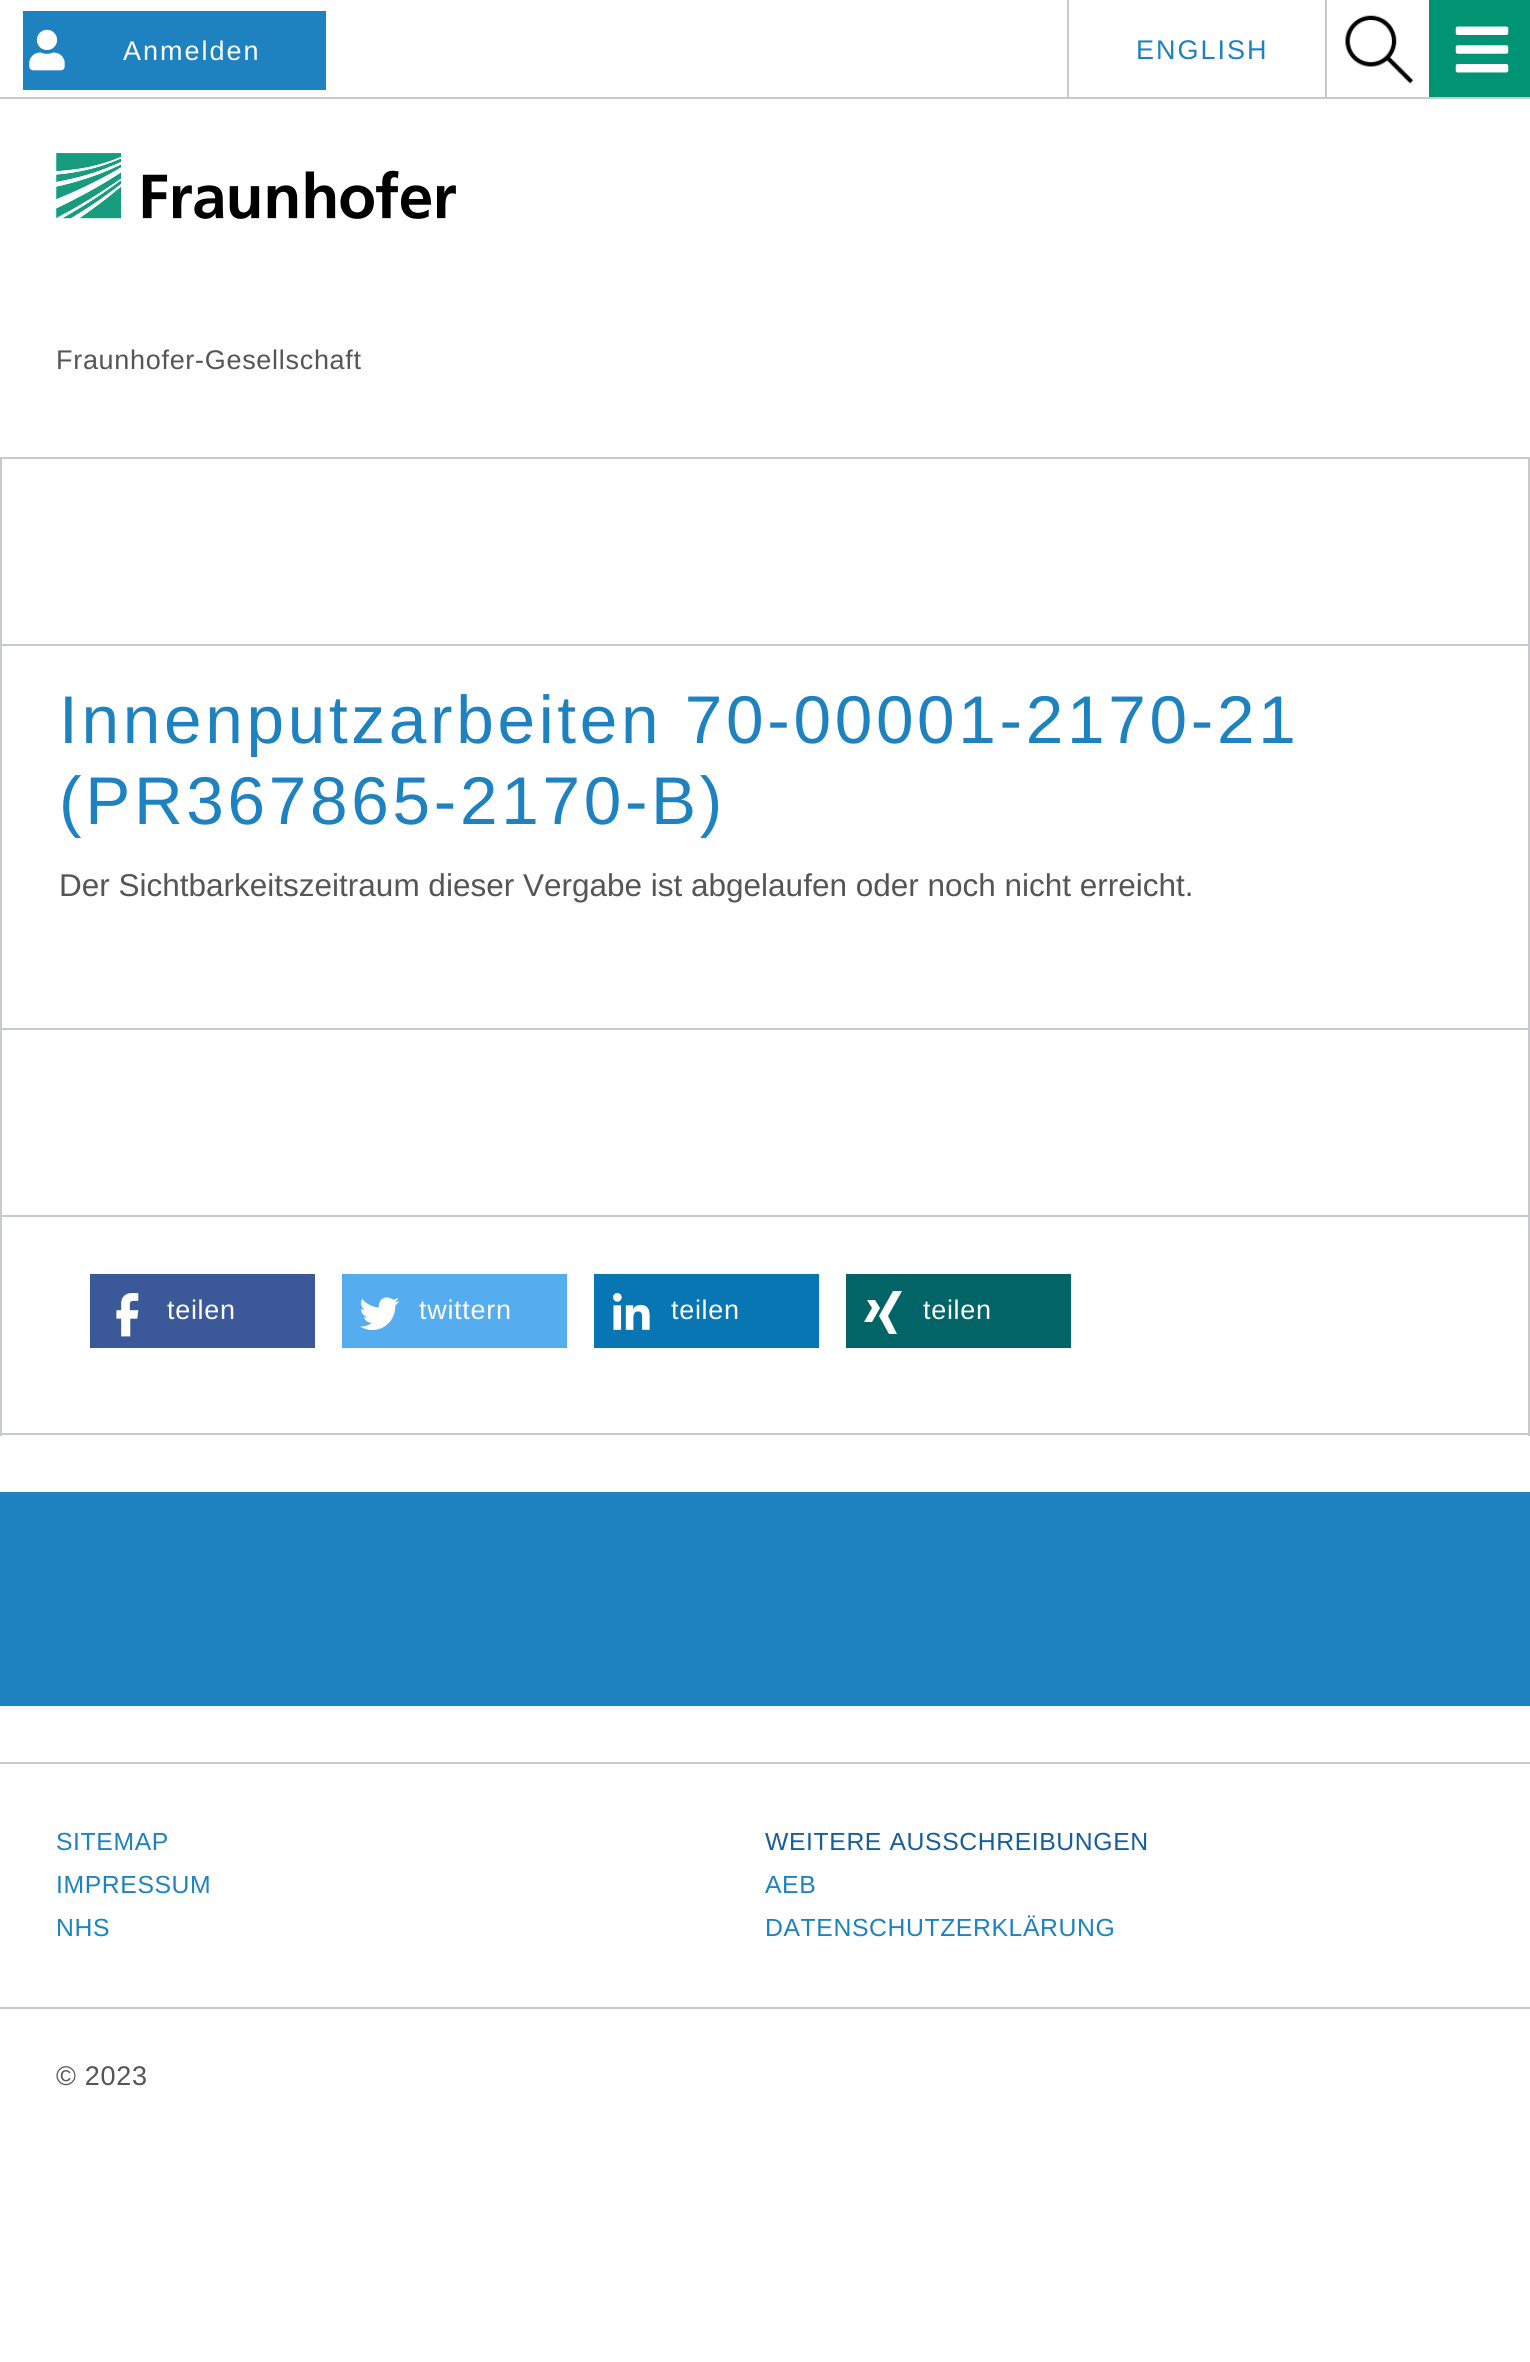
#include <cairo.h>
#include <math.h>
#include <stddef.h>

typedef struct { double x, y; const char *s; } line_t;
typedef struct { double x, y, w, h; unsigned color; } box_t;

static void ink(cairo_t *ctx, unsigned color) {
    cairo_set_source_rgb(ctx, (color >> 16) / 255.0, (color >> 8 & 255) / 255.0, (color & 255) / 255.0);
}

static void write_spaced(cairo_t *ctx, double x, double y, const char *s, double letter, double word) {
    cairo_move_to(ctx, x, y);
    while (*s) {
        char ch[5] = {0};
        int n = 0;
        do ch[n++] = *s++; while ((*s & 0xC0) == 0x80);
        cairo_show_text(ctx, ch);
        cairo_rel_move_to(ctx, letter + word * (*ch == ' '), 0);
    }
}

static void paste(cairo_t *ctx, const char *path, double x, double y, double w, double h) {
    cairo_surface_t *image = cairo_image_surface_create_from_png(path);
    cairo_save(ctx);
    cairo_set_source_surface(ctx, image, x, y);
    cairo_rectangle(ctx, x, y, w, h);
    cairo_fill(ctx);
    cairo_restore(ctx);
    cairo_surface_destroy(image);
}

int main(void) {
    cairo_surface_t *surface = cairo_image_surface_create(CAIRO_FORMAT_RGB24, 1530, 2362);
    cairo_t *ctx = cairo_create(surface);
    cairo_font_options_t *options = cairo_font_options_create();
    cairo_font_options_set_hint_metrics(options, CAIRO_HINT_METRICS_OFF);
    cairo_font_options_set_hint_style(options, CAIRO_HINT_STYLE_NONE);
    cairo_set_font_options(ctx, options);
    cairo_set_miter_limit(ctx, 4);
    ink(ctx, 0xFFFFFF);
    cairo_paint(ctx);
    paste(ctx, "media/1.png", 1345, 15, 68, 69);
    paste(ctx, "media/2.png", 56, 153, 400, 66);
    ink(ctx, 0xC7CACC);
    cairo_rectangle(ctx, 0, 97, 1530, 2);
    cairo_fill(ctx);
    ink(ctx, 0x1F82C0);
    cairo_rectangle(ctx, 23, 11, 303, 79);
    cairo_fill(ctx);
    paste(ctx, "media/3.png", 29, 29, 36, 42);
    cairo_select_font_face(ctx, "Liberation Sans", CAIRO_FONT_SLANT_NORMAL, CAIRO_FONT_WEIGHT_NORMAL);
    cairo_set_font_size(ctx, 27);
    ink(ctx, 0xFFFFFF);
    write_spaced(ctx, 123, 60, "Anmelden", 2, 0);
    ink(ctx, 0xC7CACC);
    cairo_rectangle(ctx, 1325, 0, 2, 97);
    cairo_fill(ctx);
    cairo_rectangle(ctx, 1067, 0, 2, 97);
    cairo_fill(ctx);
    ink(ctx, 0x1F82C0);
    write_spaced(ctx, 1136, 59, "ENGLISH", 2, 0);
    ink(ctx, 0x009374);
    cairo_rectangle(ctx, 1429, 0, 101, 97);
    cairo_fill(ctx);
    paste(ctx, "media/4.png", 1455, 26, 54, 47);
    ink(ctx, 0x555555);
    write_spaced(ctx, 56, 369, "Fraunhofer-Gesellschaft", 0.7, 0);
    cairo_rectangle(ctx, 1, 458, 1528, 187);
    ink(ctx, 0xC7CACC);
    cairo_stroke(ctx);
    cairo_rectangle(ctx, 1528, 646, 2, 382);
    cairo_fill(ctx);
    cairo_rectangle(ctx, 0, 646, 2, 382);
    cairo_fill(ctx);
    cairo_set_font_size(ctx, 67.5);
    ink(ctx, 0x1F82C0);
    write_spaced(ctx, 59, 743, "Innenputzarbeiten 70-00001-2170-21", 3.7, 0);
    write_spaced(ctx, 59, 824, "(PR367865-2170-B)", 3.7, 0);
    cairo_set_font_size(ctx, 31.5);
    ink(ctx, 0x555555);
    cairo_move_to(ctx, 59, 896);
    cairo_show_text(ctx, "Der Sichtbarkeitszeitraum dieser Vergabe ist abgelaufen oder noch nicht erreicht.");
    cairo_rectangle(ctx, 1, 1029, 1528, 187);
    ink(ctx, 0xC7CACC);
    cairo_stroke(ctx);
    {
        static const box_t items[] = {
            {1528, 1217, 2, 219, 0xC7CACC},
            {0, 1433, 1530, 2, 0xC7CACC},
            {0, 1217, 2, 219, 0xC7CACC},
            {90, 1274, 225, 74, 0x3B5998},
        };
        for (size_t i = 0; i < sizeof items / sizeof *items; i++) {
            ink(ctx, items[i].color);
            cairo_rectangle(ctx, items[i].x, items[i].y, items[i].w, items[i].h);
            cairo_fill(ctx);
        }
    }
    paste(ctx, "media/5.png", 116, 1293, 23, 44);
    cairo_set_font_size(ctx, 27);
    ink(ctx, 0xFFFFFF);
    write_spaced(ctx, 167, 1319, "teilen", 0.7, 0);
    ink(ctx, 0x55ACEE);
    cairo_rectangle(ctx, 342, 1274, 225, 74);
    cairo_fill(ctx);
    paste(ctx, "media/6.png", 359, 1297, 41, 34);
    ink(ctx, 0xFFFFFF);
    write_spaced(ctx, 419, 1319, "twittern", 0.7, 0);
    ink(ctx, 0x0976B4);
    cairo_rectangle(ctx, 594, 1274, 225, 74);
    cairo_fill(ctx);
    paste(ctx, "media/7.png", 613, 1293, 37, 37);
    ink(ctx, 0xFFFFFF);
    write_spaced(ctx, 671, 1319, "teilen", 0.7, 0);
    ink(ctx, 0x026466);
    cairo_rectangle(ctx, 846, 1274, 225, 74);
    cairo_fill(ctx);
    ink(ctx, 0xFFFFFF);
    cairo_new_path(ctx);
    cairo_move_to(ctx, 867, 1300);
    cairo_line_to(ctx, 872, 1308);
    cairo_line_to(ctx, 864, 1322);
    cairo_line_to(ctx, 872, 1322);
    cairo_line_to(ctx, 880, 1308);
    cairo_line_to(ctx, 875, 1300);
    cairo_close_path(ctx);
    cairo_move_to(ctx, 902, 1291);
    cairo_line_to(ctx, 893, 1291);
    cairo_line_to(ctx, 879, 1316);
    cairo_line_to(ctx, 889, 1334);
    cairo_line_to(ctx, 897, 1334);
    cairo_line_to(ctx, 888, 1316);
    cairo_close_path(ctx);
    cairo_fill(ctx);
    write_spaced(ctx, 923, 1319, "teilen", 0.7, 0);
    {
        static const box_t items[] = {
            {0, 1492, 1530, 214, 0x1F82C0},
            {0, 1762, 1530, 2, 0xC7CACC},
            {0, 2007, 1530, 2, 0xC7CACC},
        };
        for (size_t i = 0; i < sizeof items / sizeof *items; i++) {
            ink(ctx, items[i].color);
            cairo_rectangle(ctx, items[i].x, items[i].y, items[i].w, items[i].h);
            cairo_fill(ctx);
        }
    }
    cairo_set_font_size(ctx, 24.75);
    ink(ctx, 0x1F82C0);
    write_spaced(ctx, 56, 1850, "SITEMAP", 0.6, 0);
    ink(ctx, 0x185D99);
    write_spaced(ctx, 765, 1850, "WEITERE AUSSCHREIBUNGEN", 0.6, 0);
    ink(ctx, 0x1F82C0);
    {
        static const line_t items[] = {
            {56, 1893, "IMPRESSUM"},
            {765, 1893, "AEB"},
            {56, 1936, "NHS"},
            {765, 1936, "DATENSCHUTZERKLÄRUNG"},
        };
        for (size_t i = 0; i < sizeof items / sizeof *items; i++) {
            write_spaced(ctx, items[i].x, items[i].y, items[i].s, 0.6, 0);
        }
    }
    cairo_set_font_size(ctx, 27);
    ink(ctx, 0x555555);
    write_spaced(ctx, 56, 2085, "© 2023", 0.7, 0);
    cairo_surface_write_to_png(surface, "image.png");
    cairo_font_options_destroy(options);
    cairo_destroy(ctx);
    cairo_surface_destroy(surface);
    return 0;
}
